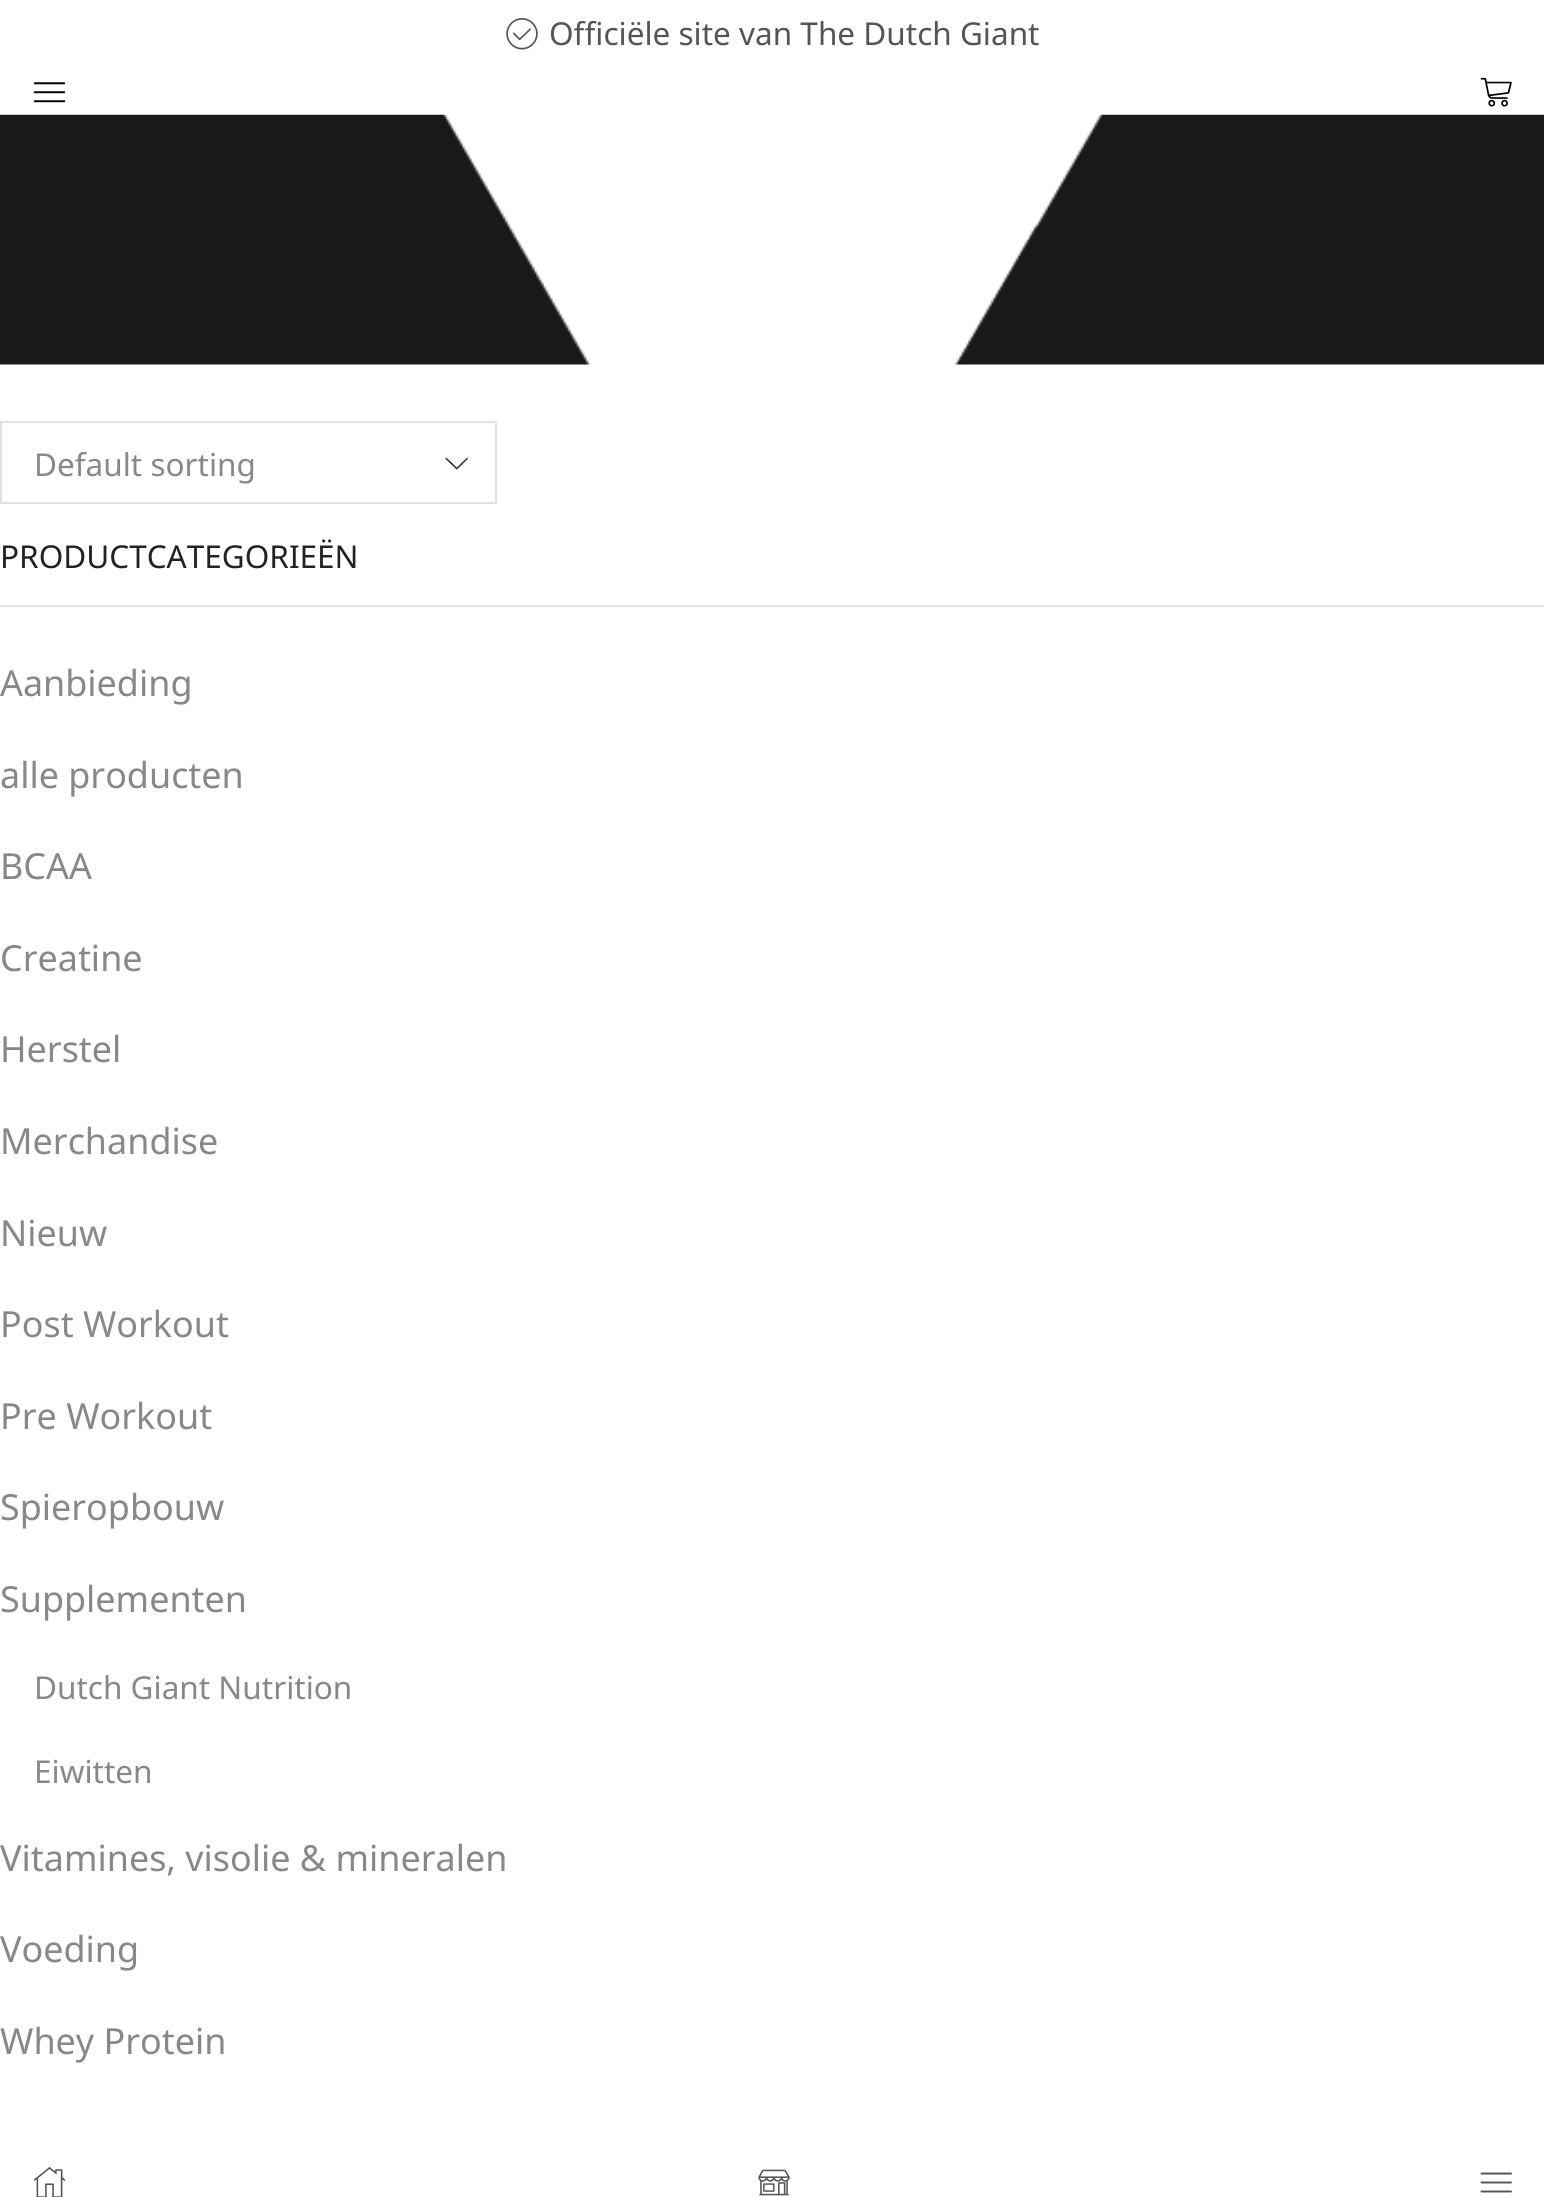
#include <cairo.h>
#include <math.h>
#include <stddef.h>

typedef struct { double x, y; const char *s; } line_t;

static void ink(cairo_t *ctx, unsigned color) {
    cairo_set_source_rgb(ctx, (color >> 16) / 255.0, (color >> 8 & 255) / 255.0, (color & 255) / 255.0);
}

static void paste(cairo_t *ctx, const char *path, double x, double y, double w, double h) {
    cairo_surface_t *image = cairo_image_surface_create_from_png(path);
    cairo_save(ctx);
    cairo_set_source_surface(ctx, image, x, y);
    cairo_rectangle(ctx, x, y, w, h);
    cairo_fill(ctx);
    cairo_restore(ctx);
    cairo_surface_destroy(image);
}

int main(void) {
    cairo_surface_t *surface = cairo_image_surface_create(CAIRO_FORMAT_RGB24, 1544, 2197);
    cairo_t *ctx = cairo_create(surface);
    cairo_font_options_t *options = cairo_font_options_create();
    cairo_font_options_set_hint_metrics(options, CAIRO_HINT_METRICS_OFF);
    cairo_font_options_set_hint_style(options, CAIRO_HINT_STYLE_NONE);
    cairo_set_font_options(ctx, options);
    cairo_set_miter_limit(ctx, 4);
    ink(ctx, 0xFFFFFF);
    cairo_paint(ctx);
    paste(ctx, "media/1.png", 506, 18, 32, 32);
    cairo_select_font_face(ctx, "Noto Sans", CAIRO_FONT_SLANT_NORMAL, CAIRO_FONT_WEIGHT_NORMAL);
    cairo_set_font_size(ctx, 31.5);
    ink(ctx, 0x555555);
    cairo_move_to(ctx, 549, 45);
    cairo_show_text(ctx, "Officiële site van The Dutch Giant");
    paste(ctx, "media/2.png", 33, 82, 33, 21);
    paste(ctx, "media/3.png", 1480, 77, 32, 30);
    paste(ctx, "media/4.png", 0, 114, 1544, 251);
    paste(ctx, "media/5.png", 445, 457, 23, 13);
    cairo_rectangle(ctx, 1, 422, 495, 81);
    ink(ctx, 0xE1E1E1);
    cairo_stroke(ctx);
    ink(ctx, 0x888888);
    cairo_move_to(ctx, 34, 476);
    cairo_show_text(ctx, "Default sorting");
    ink(ctx, 0xE1E1E1);
    cairo_rectangle(ctx, 0, 605, 1544, 2);
    cairo_fill(ctx);
    ink(ctx, 0x222222);
    cairo_move_to(ctx, 0, 568);
    cairo_show_text(ctx, "PRODUCTCATEGORIEËN");
    cairo_set_font_size(ctx, 35.9);
    ink(ctx, 0x888888);
    {
        static const line_t items[] = {
            {0, 696, "Aanbieding"},
            {0, 788, "alle producten"},
            {0, 879, "BCAA"},
            {0, 971, "Creatine"},
            {0, 1062, "Herstel"},
            {0, 1154, "Merchandise"},
            {0, 1246, "Nieuw"},
            {0, 1337, "Post Workout"},
            {0, 1429, "Pre Workout"},
            {0, 1520, "Spieropbouw"},
            {0, 1612, "Supplementen"},
        };
        for (size_t i = 0; i < sizeof items / sizeof *items; i++) {
            cairo_move_to(ctx, items[i].x, items[i].y);
            cairo_show_text(ctx, items[i].s);
        }
    }
    cairo_set_font_size(ctx, 31.5);
    cairo_move_to(ctx, 34, 1699);
    cairo_show_text(ctx, "Dutch Giant Nutrition");
    cairo_move_to(ctx, 34, 1783);
    cairo_show_text(ctx, "Eiwitten");
    cairo_set_font_size(ctx, 35.9);
    {
        static const line_t items[] = {
            {0, 1871, "Vitamines, visolie & mineralen"},
            {0, 1962, "Voeding"},
            {0, 2054, "Whey Protein"},
        };
        for (size_t i = 0; i < sizeof items / sizeof *items; i++) {
            cairo_move_to(ctx, items[i].x, items[i].y);
            cairo_show_text(ctx, items[i].s);
        }
    }
    paste(ctx, "media/6.png", 33, 2167, 33, 30);
    paste(ctx, "media/7.png", 758, 2169, 32, 27);
    paste(ctx, "media/8.png", 1480, 2172, 32, 21);
    cairo_surface_write_to_png(surface, "image.png");
    cairo_font_options_destroy(options);
    cairo_destroy(ctx);
    cairo_surface_destroy(surface);
    return 0;
}
